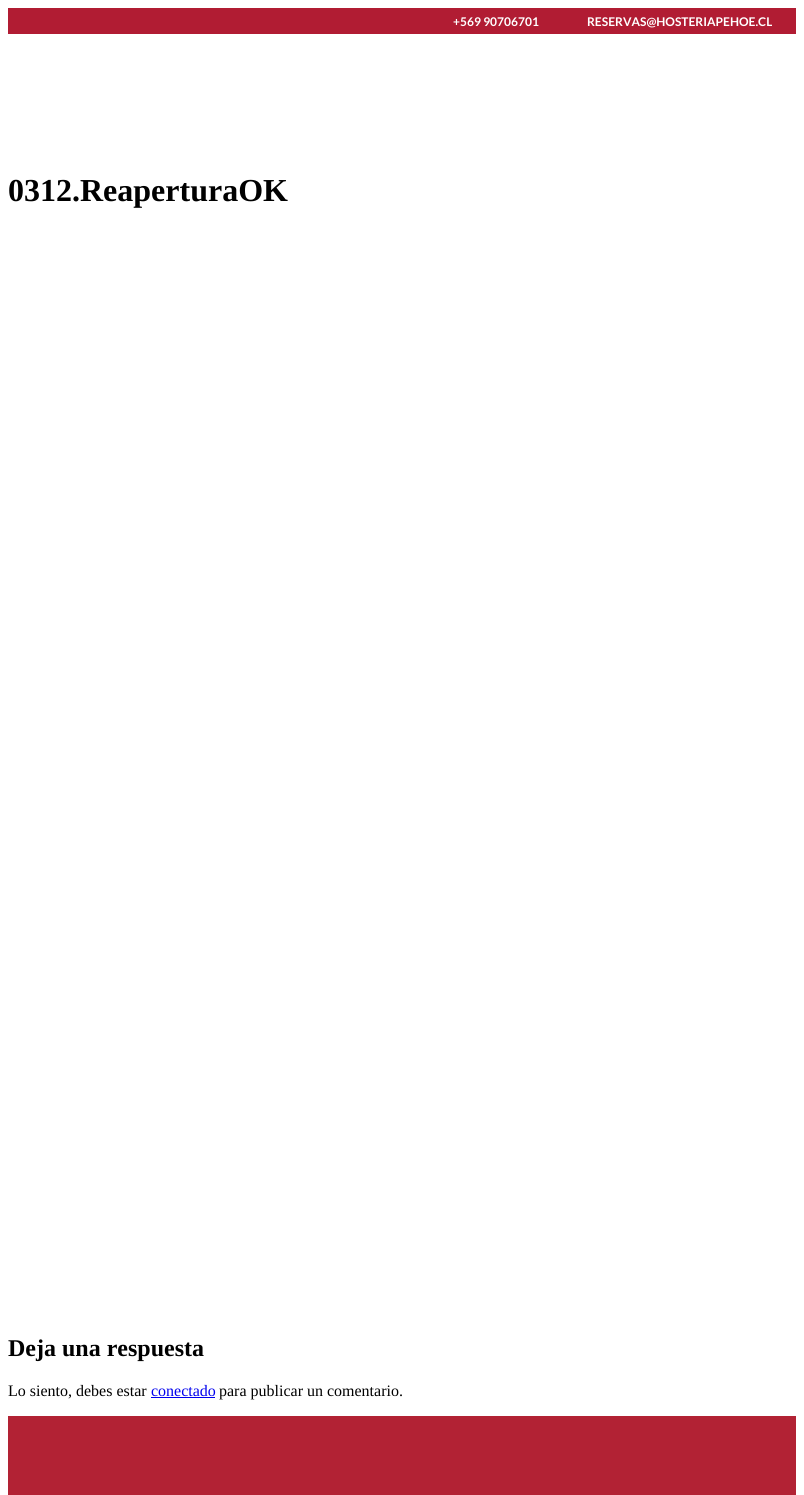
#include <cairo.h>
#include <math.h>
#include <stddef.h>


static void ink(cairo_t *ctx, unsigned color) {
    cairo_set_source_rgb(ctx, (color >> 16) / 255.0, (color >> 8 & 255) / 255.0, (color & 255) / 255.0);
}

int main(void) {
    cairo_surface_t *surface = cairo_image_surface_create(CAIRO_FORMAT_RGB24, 804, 1495);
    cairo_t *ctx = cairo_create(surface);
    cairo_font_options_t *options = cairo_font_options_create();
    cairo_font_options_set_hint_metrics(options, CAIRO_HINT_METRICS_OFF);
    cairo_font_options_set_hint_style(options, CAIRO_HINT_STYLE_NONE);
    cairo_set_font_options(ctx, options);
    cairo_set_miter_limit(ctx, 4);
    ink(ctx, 0xFFFFFF);
    cairo_paint(ctx);
    ink(ctx, 0xB11C33);
    cairo_rectangle(ctx, 8, 8, 788, 26);
    cairo_fill(ctx);
    cairo_select_font_face(ctx, "Lato", CAIRO_FONT_SLANT_NORMAL, CAIRO_FONT_WEIGHT_BOLD);
    cairo_set_font_size(ctx, 12);
    ink(ctx, 0xFFFFFF);
    cairo_move_to(ctx, 453, 26);
    cairo_show_text(ctx, "+569 90706701");
    cairo_move_to(ctx, 587, 26);
    cairo_show_text(ctx, "RESERVAS@HOSTERIAPEHOE.CL");
    cairo_select_font_face(ctx, "Liberation Serif", CAIRO_FONT_SLANT_NORMAL, CAIRO_FONT_WEIGHT_BOLD);
    cairo_set_font_size(ctx, 32);
    ink(ctx, 0x000000);
    cairo_move_to(ctx, 8, 201);
    cairo_show_text(ctx, "0312.ReaperturaOK");
    cairo_set_font_size(ctx, 24);
    cairo_move_to(ctx, 8, 1356);
    cairo_show_text(ctx, "Deja una respuesta");
    cairo_select_font_face(ctx, "Liberation Serif", CAIRO_FONT_SLANT_NORMAL, CAIRO_FONT_WEIGHT_NORMAL);
    cairo_set_font_size(ctx, 16);
    cairo_move_to(ctx, 8, 1396);
    cairo_show_text(ctx, "Lo siento, debes estar");
    ink(ctx, 0x0000EE);
    cairo_move_to(ctx, 151, 1396);
    cairo_show_text(ctx, "conectado");
    cairo_rectangle(ctx, 151, 1397, 64, 1);
    cairo_fill(ctx);
    ink(ctx, 0x000000);
    cairo_move_to(ctx, 219, 1396);
    cairo_show_text(ctx, "para publicar un comentario.");
    ink(ctx, 0xB22234);
    cairo_rectangle(ctx, 8, 1416, 788, 79);
    cairo_fill(ctx);
    cairo_surface_write_to_png(surface, "image.png");
    cairo_font_options_destroy(options);
    cairo_destroy(ctx);
    cairo_surface_destroy(surface);
    return 0;
}
